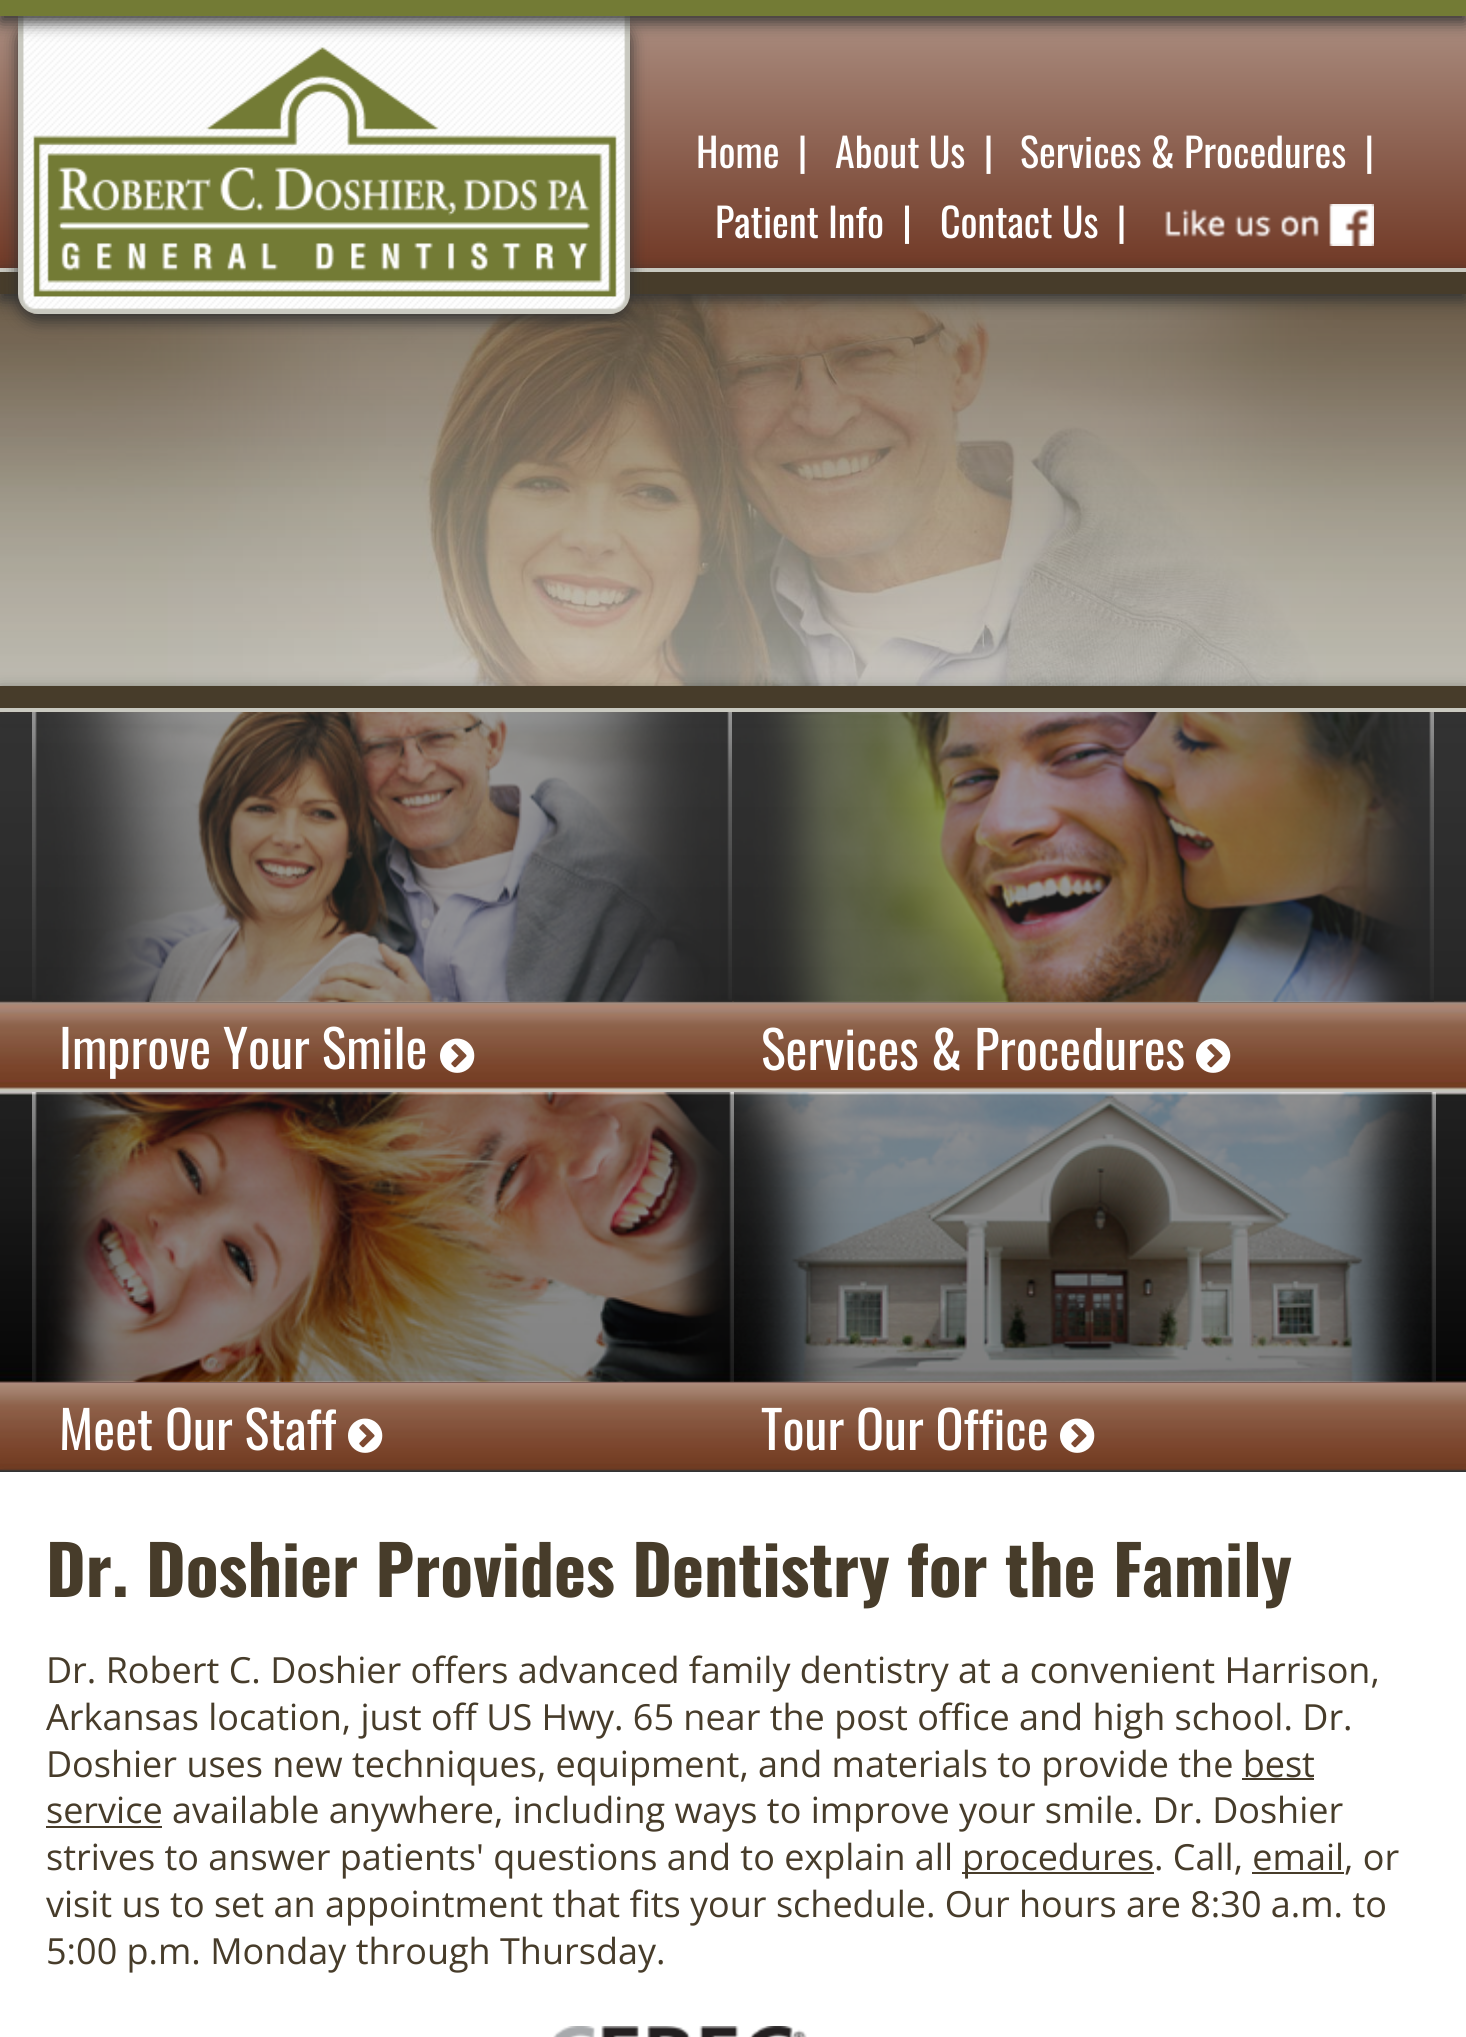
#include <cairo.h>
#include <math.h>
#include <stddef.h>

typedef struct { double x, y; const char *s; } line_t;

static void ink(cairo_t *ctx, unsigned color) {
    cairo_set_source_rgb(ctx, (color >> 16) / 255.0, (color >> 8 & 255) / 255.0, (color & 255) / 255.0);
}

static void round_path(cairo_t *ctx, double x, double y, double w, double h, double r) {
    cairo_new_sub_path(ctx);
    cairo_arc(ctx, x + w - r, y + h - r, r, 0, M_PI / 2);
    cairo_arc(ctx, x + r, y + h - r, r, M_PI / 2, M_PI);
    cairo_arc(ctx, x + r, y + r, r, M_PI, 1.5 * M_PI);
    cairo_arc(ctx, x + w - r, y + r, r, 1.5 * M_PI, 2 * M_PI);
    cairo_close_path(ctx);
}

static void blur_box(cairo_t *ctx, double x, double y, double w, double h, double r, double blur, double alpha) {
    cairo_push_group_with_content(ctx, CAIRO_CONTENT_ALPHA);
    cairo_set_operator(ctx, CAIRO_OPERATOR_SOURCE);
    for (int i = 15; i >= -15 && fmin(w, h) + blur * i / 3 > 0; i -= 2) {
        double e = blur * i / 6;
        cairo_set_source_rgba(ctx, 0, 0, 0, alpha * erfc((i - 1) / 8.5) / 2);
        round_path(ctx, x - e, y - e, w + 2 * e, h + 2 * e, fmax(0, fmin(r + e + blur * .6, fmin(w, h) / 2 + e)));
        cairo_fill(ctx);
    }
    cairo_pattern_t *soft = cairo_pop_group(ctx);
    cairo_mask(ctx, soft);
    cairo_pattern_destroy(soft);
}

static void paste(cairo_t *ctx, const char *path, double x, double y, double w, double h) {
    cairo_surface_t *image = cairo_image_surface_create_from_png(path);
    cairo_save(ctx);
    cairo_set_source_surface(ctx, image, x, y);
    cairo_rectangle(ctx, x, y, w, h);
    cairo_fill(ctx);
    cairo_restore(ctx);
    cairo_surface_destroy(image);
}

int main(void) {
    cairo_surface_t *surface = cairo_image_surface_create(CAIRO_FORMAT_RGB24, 1466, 2037);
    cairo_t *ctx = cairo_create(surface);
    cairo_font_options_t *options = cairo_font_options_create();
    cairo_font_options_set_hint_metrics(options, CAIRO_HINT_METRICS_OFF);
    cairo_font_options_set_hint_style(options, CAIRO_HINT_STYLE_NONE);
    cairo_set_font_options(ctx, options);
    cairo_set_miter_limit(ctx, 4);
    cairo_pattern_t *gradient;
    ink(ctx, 0xFFFFFF);
    cairo_paint(ctx);
    gradient = cairo_pattern_create_linear(733, 0, 733, 268);
    cairo_pattern_add_color_stop_rgba(gradient, 0, 0.682, 0.573, 0.522, 1);
    cairo_pattern_add_color_stop_rgba(gradient, 1, 0.443, 0.224, 0.149, 1);
    cairo_set_source(ctx, gradient);
    cairo_pattern_destroy(gradient);
    cairo_rectangle(ctx, 0, 16, 1466, 252);
    cairo_fill(ctx);
    paste(ctx, "media/3.png", 0, 294, 1466, 392);
    paste(ctx, "media/5.png", 0, 712, 1466, 760);
    ink(ctx, 0x323232);
    blur_box(ctx, 0, 692, 1466, 26, 0, 8, 1);
    paste(ctx, "media/4.png", 0, 294, 1466, 392);
    blur_box(ctx, 0, 274, 1466, 26, 0, 8, 1);
    ink(ctx, 0x473C2A);
    cairo_rectangle(ctx, 0, 272, 1466, 22);
    cairo_fill(ctx);
    ink(ctx, 0xC9C9C0);
    cairo_rectangle(ctx, 0, 268, 1466, 4);
    cairo_fill(ctx);
    cairo_save(ctx);
    cairo_set_fill_rule(ctx, CAIRO_FILL_RULE_EVEN_ODD);
    cairo_new_path(ctx);
    cairo_move_to(ctx, 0, 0);
    cairo_line_to(ctx, 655, 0);
    cairo_line_to(ctx, 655, 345);
    cairo_line_to(ctx, 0, 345);
    cairo_close_path(ctx);
    cairo_move_to(ctx, 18, 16);
    cairo_line_to(ctx, 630, 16);
    cairo_line_to(ctx, 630, 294);
    cairo_curve_to(ctx, 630, 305, 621, 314, 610, 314);
    cairo_line_to(ctx, 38, 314);
    cairo_curve_to(ctx, 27, 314, 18, 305, 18, 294);
    cairo_close_path(ctx);
    cairo_clip(ctx);
    ink(ctx, 0x323232);
    blur_box(ctx, 18, 22, 612, 298, 20, 8, 1);
    cairo_restore(ctx);
    paste(ctx, "media/1.png", 18, 16, 612, 298);
    ink(ctx, 0x323232);
    blur_box(ctx, 0, 6, 1466, 16, 0, 8, 1);
    ink(ctx, 0x737B35);
    cairo_rectangle(ctx, 0, 0, 1466, 16);
    cairo_fill(ctx);
    cairo_select_font_face(ctx, "Oswald", CAIRO_FONT_SLANT_NORMAL, CAIRO_FONT_WEIGHT_NORMAL);
    cairo_set_font_size(ctx, 40);
    ink(ctx, 0xFFFFFF);
    {
        static const line_t items[] = {
            {696, 168, "Home  |"},
            {835, 168, "About Us  |"},
            {1020, 168, "Services & Procedures  |"},
            {715, 238, "Patient Info  |"},
            {940, 238, "Contact Us  |"},
        };
        for (size_t i = 0; i < sizeof items / sizeof *items; i++) {
            cairo_move_to(ctx, items[i].x, items[i].y);
            cairo_show_text(ctx, items[i].s);
        }
    }
    paste(ctx, "media/2.png", 1165, 204, 209, 42);
    ink(ctx, 0x473C2A);
    cairo_rectangle(ctx, 0, 686, 1466, 22);
    cairo_fill(ctx);
    ink(ctx, 0xC9C9C0);
    cairo_rectangle(ctx, 0, 708, 1466, 4);
    cairo_fill(ctx);
    paste(ctx, "media/6.png", 32, 712, 700, 290);
    cairo_set_font_size(ctx, 52);
    ink(ctx, 0xFFFFFF);
    cairo_move_to(ctx, 59, 1069);
    cairo_show_text(ctx, "Improve Your Smile");
    paste(ctx, "media/7.png", 440, 1038, 35, 35);
    paste(ctx, "media/8.png", 734, 712, 700, 290);
    cairo_move_to(ctx, 761, 1070);
    cairo_show_text(ctx, "Services & Procedures");
    paste(ctx, "media/7.png", 1196, 1038, 35, 35);
    paste(ctx, "media/9.png", 32, 1092, 702, 290);
    cairo_move_to(ctx, 59, 1450);
    cairo_show_text(ctx, "Meet Our Staff");
    paste(ctx, "media/10.png", 348, 1418, 35, 35);
    paste(ctx, "media/11.png", 734, 1092, 702, 290);
    cairo_move_to(ctx, 761, 1450);
    cairo_show_text(ctx, "Tour Our Office");
    paste(ctx, "media/10.png", 1060, 1418, 35, 35);
    ink(ctx, 0x323232);
    blur_box(ctx, 0, 1478, 1466, 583, 0, 8, 1);
    ink(ctx, 0xFFFFFF);
    cairo_rectangle(ctx, 0, 1472, 1466, 565);
    cairo_fill(ctx);
    cairo_select_font_face(ctx, "Oswald", CAIRO_FONT_SLANT_NORMAL, CAIRO_FONT_WEIGHT_BOLD);
    cairo_set_font_size(ctx, 68);
    ink(ctx, 0x473C2A);
    cairo_move_to(ctx, 46, 1597);
    cairo_show_text(ctx, "Dr. Doshier Provides Dentistry for the Family");
    cairo_select_font_face(ctx, "Open Sans", CAIRO_FONT_SLANT_NORMAL, CAIRO_FONT_WEIGHT_NORMAL);
    cairo_set_font_size(ctx, 36);
    {
        static const line_t items[] = {
            {46, 1683, "Dr. Robert C. Doshier offers advanced family dentistry at a convenient Harrison,"},
            {46, 1730, "Arkansas location, just off US Hwy. 65 near the post office and high school. Dr."},
            {46, 1777, "Doshier uses new techniques, equipment, and materials to provide the best"},
        };
        for (size_t i = 0; i < sizeof items / sizeof *items; i++) {
            cairo_move_to(ctx, items[i].x, items[i].y);
            cairo_show_text(ctx, items[i].s);
        }
    }
    cairo_rectangle(ctx, 46, 1826, 116, 2);
    cairo_fill(ctx);
    cairo_move_to(ctx, 46, 1823);
    cairo_show_text(ctx, "service available anywhere, including ways to improve your smile. Dr. Doshier");
    cairo_rectangle(ctx, 1242, 1778, 72, 2);
    cairo_fill(ctx);
    cairo_move_to(ctx, 46, 1870);
    cairo_show_text(ctx, "strives to answer patients' questions and to explain all");
    cairo_rectangle(ctx, 962, 1872, 192, 2);
    cairo_fill(ctx);
    cairo_move_to(ctx, 962, 1870);
    cairo_show_text(ctx, "procedures. Call, email, or");
    cairo_rectangle(ctx, 1252, 1872, 92, 2);
    cairo_fill(ctx);
    cairo_move_to(ctx, 46, 1917);
    cairo_show_text(ctx, "visit us to set an appointment that fits your schedule. Our hours are 8:30 a.m. to");
    cairo_move_to(ctx, 46, 1964);
    cairo_show_text(ctx, "5:00 p.m. Monday through Thursday.");
    paste(ctx, "media/12.png", 553, 2026, 254, 11);
    cairo_surface_write_to_png(surface, "image.png");
    cairo_font_options_destroy(options);
    cairo_destroy(ctx);
    cairo_surface_destroy(surface);
    return 0;
}
